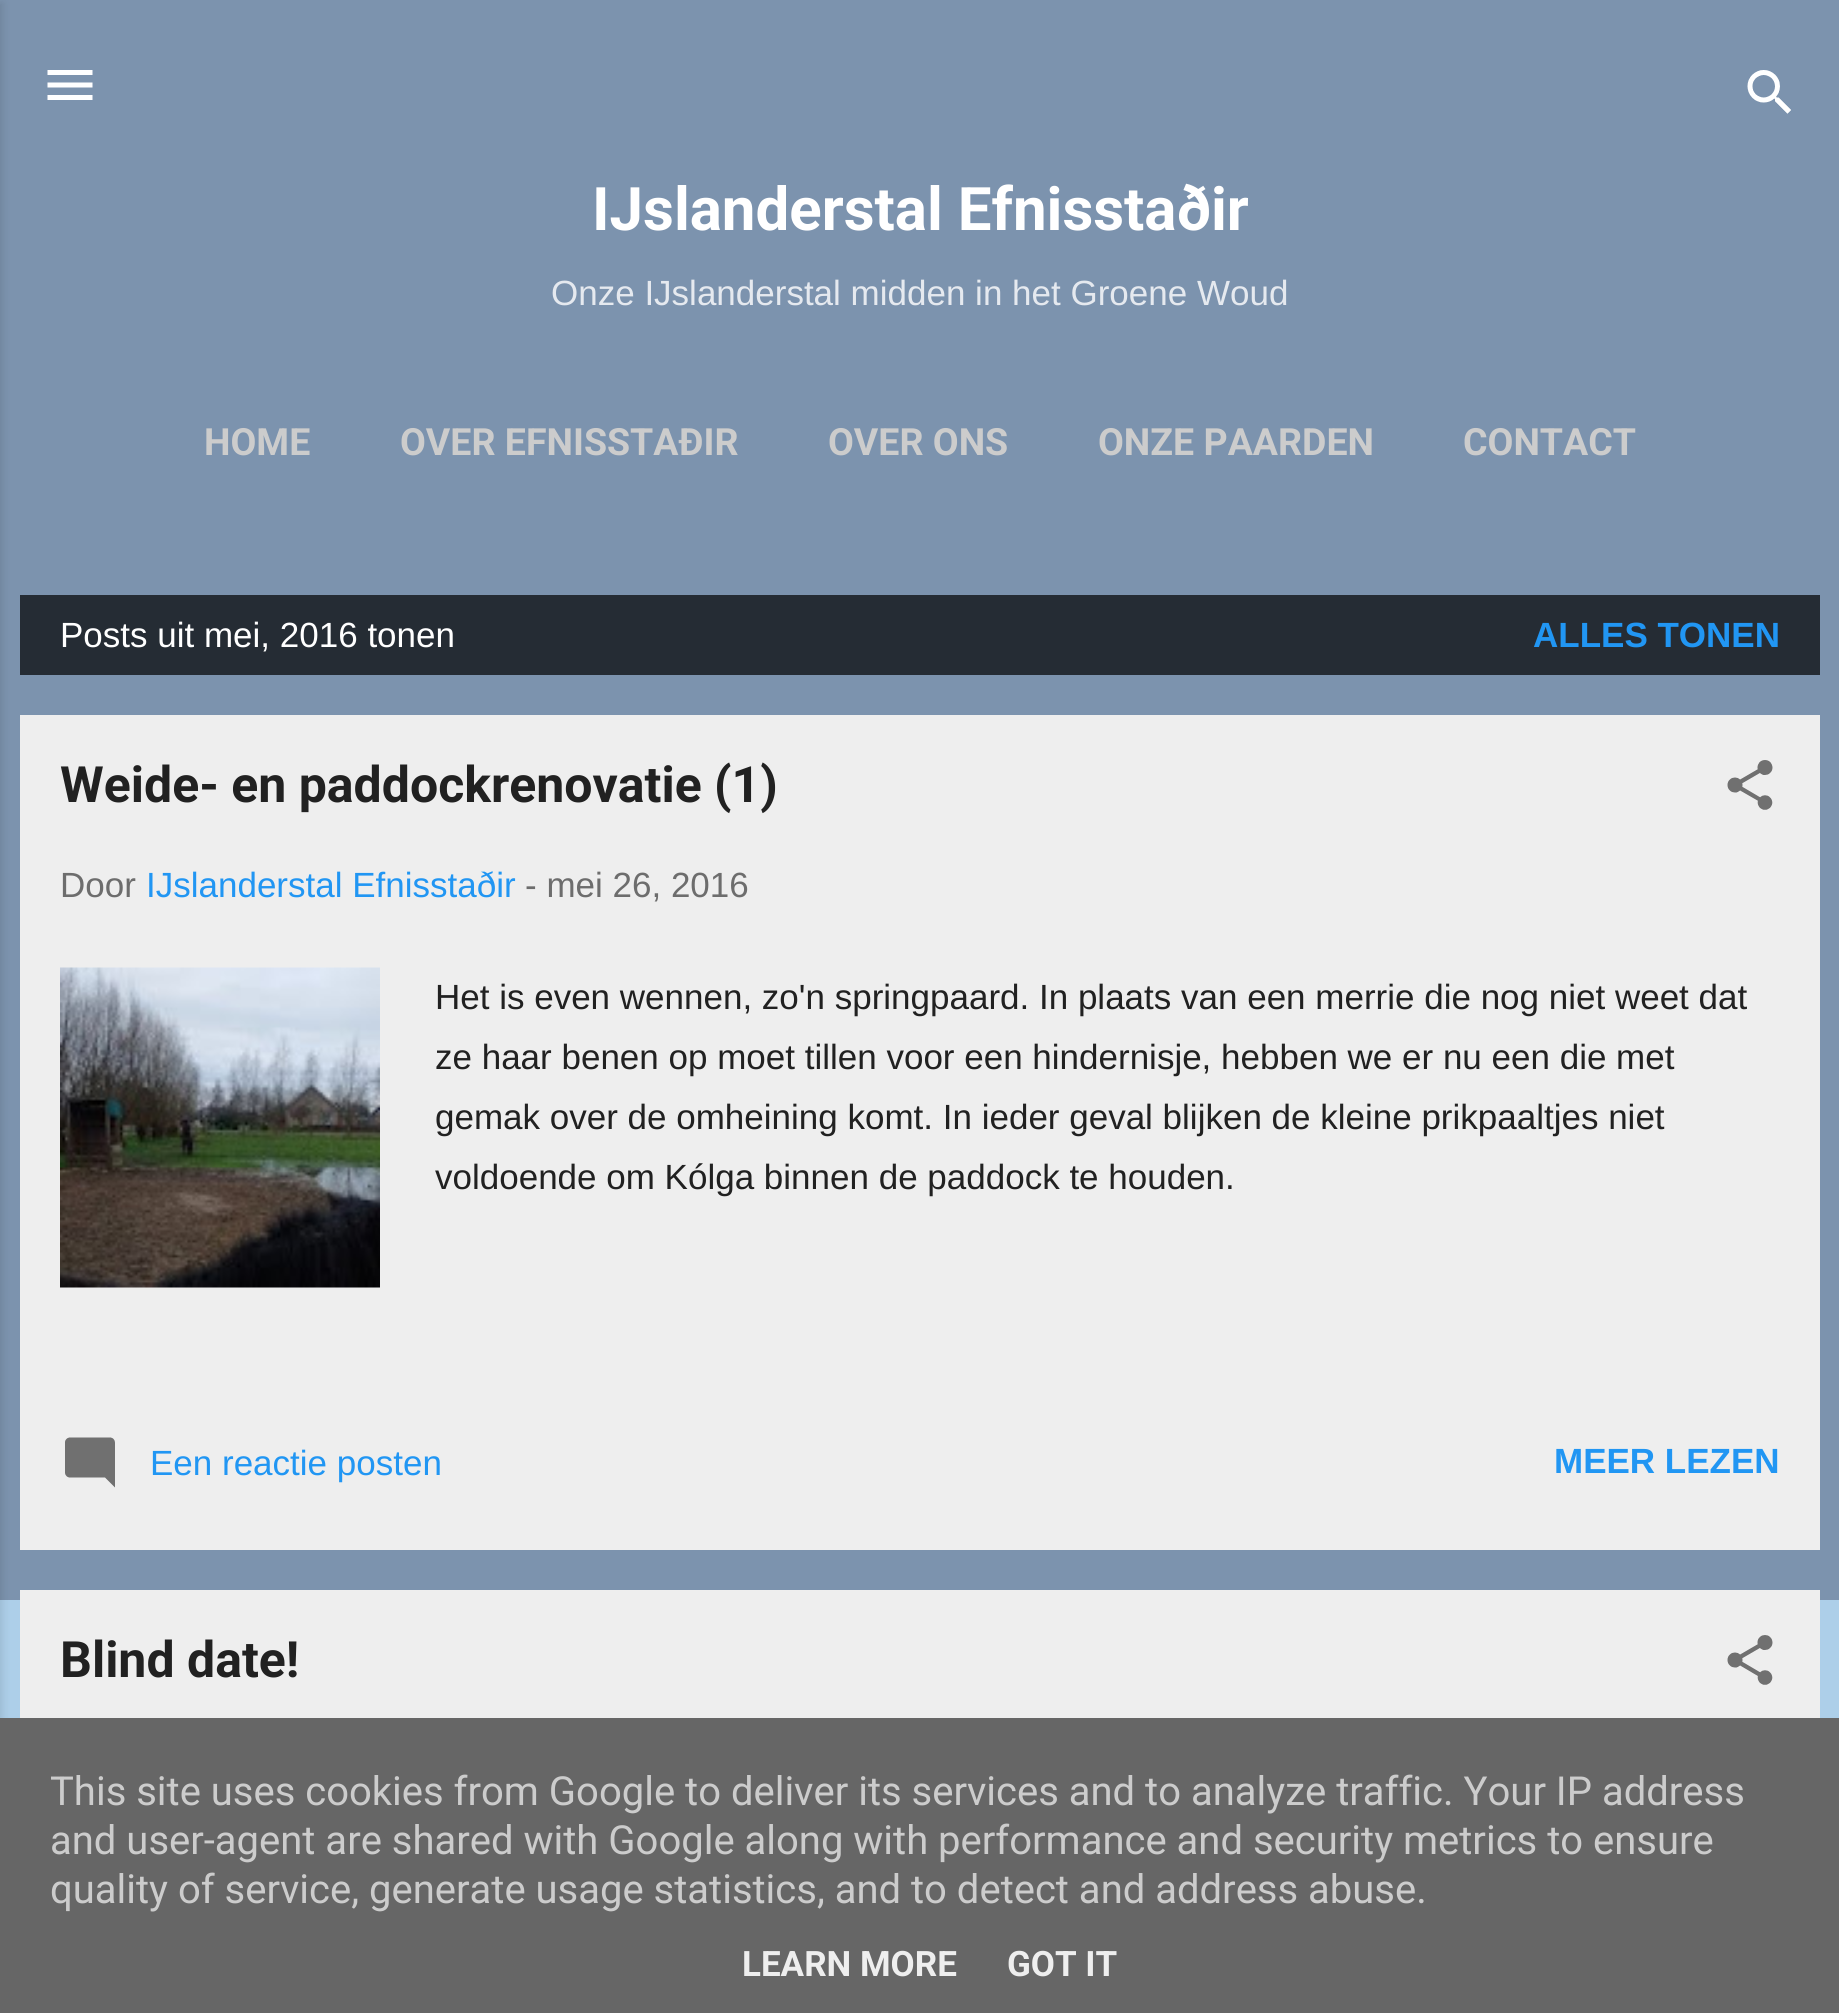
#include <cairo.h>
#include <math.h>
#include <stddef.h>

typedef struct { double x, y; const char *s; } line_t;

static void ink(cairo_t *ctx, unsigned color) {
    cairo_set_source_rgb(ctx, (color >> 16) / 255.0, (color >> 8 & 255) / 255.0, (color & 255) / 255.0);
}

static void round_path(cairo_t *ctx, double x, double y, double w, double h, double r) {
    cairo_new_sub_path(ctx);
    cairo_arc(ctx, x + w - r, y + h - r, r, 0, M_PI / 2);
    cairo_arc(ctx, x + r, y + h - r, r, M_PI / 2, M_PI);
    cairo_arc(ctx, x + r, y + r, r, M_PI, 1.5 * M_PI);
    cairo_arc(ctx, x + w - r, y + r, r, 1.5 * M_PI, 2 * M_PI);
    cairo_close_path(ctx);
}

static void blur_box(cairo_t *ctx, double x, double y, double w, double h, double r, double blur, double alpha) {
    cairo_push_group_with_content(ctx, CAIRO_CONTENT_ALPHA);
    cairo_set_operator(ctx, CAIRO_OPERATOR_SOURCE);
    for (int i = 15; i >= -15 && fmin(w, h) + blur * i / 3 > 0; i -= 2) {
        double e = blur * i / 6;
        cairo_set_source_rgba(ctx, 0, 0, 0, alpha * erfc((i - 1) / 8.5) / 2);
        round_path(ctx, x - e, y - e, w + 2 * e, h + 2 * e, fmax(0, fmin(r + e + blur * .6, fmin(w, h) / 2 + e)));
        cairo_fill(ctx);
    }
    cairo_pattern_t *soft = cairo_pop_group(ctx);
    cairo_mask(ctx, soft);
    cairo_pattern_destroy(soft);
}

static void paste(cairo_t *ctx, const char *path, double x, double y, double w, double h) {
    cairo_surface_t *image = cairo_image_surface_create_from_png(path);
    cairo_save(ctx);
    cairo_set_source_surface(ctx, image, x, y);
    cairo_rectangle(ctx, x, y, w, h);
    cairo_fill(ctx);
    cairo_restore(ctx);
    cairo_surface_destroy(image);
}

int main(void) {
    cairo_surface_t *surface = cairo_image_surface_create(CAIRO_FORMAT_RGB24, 1839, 2013);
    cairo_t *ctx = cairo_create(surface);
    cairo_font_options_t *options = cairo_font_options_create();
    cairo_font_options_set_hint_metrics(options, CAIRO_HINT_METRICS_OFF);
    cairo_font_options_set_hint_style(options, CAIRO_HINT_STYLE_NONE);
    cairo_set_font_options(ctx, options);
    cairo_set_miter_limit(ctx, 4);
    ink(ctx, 0xADCFE9);
    cairo_paint(ctx);
    ink(ctx, 0x7C93AE);
    cairo_rectangle(ctx, 0, 0, 1839, 1600);
    cairo_fill(ctx);
    ink(ctx, 0x000000);
    blur_box(ctx, -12, 3, 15, 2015, 0, 4, 0.1);
    paste(ctx, "media/1.png", 47, 70, 46, 30);
    paste(ctx, "media/2.png", 1747, 70, 44, 44);
    cairo_select_font_face(ctx, "Roboto", CAIRO_FONT_SLANT_NORMAL, CAIRO_FONT_WEIGHT_BOLD);
    cairo_set_font_size(ctx, 60);
    ink(ctx, 0xFFFFFF);
    cairo_move_to(ctx, 592, 230);
    cairo_show_text(ctx, "IJslanderstal Efnisstaðir");
    cairo_select_font_face(ctx, "Liberation Sans", CAIRO_FONT_SLANT_NORMAL, CAIRO_FONT_WEIGHT_NORMAL);
    cairo_set_font_size(ctx, 35);
    ink(ctx, 0xE5E9EF);
    cairo_move_to(ctx, 551, 305);
    cairo_show_text(ctx, "Onze IJslanderstal midden in het Groene Woud");
    cairo_select_font_face(ctx, "Roboto", CAIRO_FONT_SLANT_NORMAL, CAIRO_FONT_WEIGHT_BOLD);
    cairo_set_font_size(ctx, 37.5);
    ink(ctx, 0xCCCCCC);
    {
        static const line_t items[] = {
            {204, 455, "HOME"},
            {400, 455, "OVER EFNISSTAÐIR"},
            {828, 455, "OVER ONS"},
            {1098, 455, "ONZE PAARDEN"},
            {1463, 455, "CONTACT"},
        };
        for (size_t i = 0; i < sizeof items / sizeof *items; i++) {
            cairo_move_to(ctx, items[i].x, items[i].y);
            cairo_show_text(ctx, items[i].s);
        }
    }
    ink(ctx, 0x252C34);
    cairo_rectangle(ctx, 20, 595, 1800, 80);
    cairo_fill(ctx);
    cairo_select_font_face(ctx, "Liberation Sans", CAIRO_FONT_SLANT_NORMAL, CAIRO_FONT_WEIGHT_NORMAL);
    cairo_set_font_size(ctx, 35);
    ink(ctx, 0xFFFFFF);
    cairo_move_to(ctx, 60, 647);
    cairo_show_text(ctx, "Posts uit mei, 2016 tonen");
    cairo_select_font_face(ctx, "Liberation Sans", CAIRO_FONT_SLANT_NORMAL, CAIRO_FONT_WEIGHT_BOLD);
    ink(ctx, 0x2196F3);
    cairo_move_to(ctx, 1533, 647);
    cairo_show_text(ctx, "ALLES TONEN");
    ink(ctx, 0xEEEEEE);
    cairo_rectangle(ctx, 20, 715, 1800, 835);
    cairo_fill(ctx);
    cairo_select_font_face(ctx, "Roboto", CAIRO_FONT_SLANT_NORMAL, CAIRO_FONT_WEIGHT_BOLD);
    cairo_set_font_size(ctx, 50);
    ink(ctx, 0x212121);
    cairo_move_to(ctx, 60, 802);
    cairo_show_text(ctx, "Weide- en paddockrenovatie (1)");
    paste(ctx, "media/3.png", 1727, 760, 46, 50);
    cairo_select_font_face(ctx, "Liberation Sans", CAIRO_FONT_SLANT_NORMAL, CAIRO_FONT_WEIGHT_NORMAL);
    cairo_set_font_size(ctx, 35);
    ink(ctx, 0x6D6D6D);
    cairo_move_to(ctx, 60, 897);
    cairo_show_text(ctx, "Door");
    ink(ctx, 0x2196F3);
    cairo_move_to(ctx, 146, 897);
    cairo_show_text(ctx, "IJslanderstal Efnisstaðir");
    ink(ctx, 0x6D6D6D);
    cairo_move_to(ctx, 525, 897);
    cairo_show_text(ctx, "- mei 26, 2016");
    paste(ctx, "media/4.png", 60, 967, 320, 321);
    ink(ctx, 0x212121);
    {
        static const line_t items[] = {
            {435, 1009, "Het is even wennen, zo'n springpaard. In plaats van een merrie die nog niet weet dat"},
            {435, 1069, "ze haar benen op moet tillen voor een hindernisje, hebben we er nu een die met"},
            {435, 1129, "gemak over de omheining komt. In ieder geval blijken de kleine prikpaaltjes niet"},
            {435, 1189, "voldoende om Kólga binnen de paddock te houden."},
        };
        for (size_t i = 0; i < sizeof items / sizeof *items; i++) {
            cairo_move_to(ctx, items[i].x, items[i].y);
            cairo_show_text(ctx, items[i].s);
        }
    }
    paste(ctx, "media/5.png", 65, 1437, 50, 51);
    ink(ctx, 0x2196F3);
    cairo_move_to(ctx, 150, 1475);
    cairo_show_text(ctx, "Een reactie posten");
    cairo_select_font_face(ctx, "Liberation Sans", CAIRO_FONT_SLANT_NORMAL, CAIRO_FONT_WEIGHT_BOLD);
    cairo_move_to(ctx, 1554, 1473);
    cairo_show_text(ctx, "MEER LEZEN");
    ink(ctx, 0xEEEEEE);
    cairo_rectangle(ctx, 20, 1590, 1800, 128);
    cairo_fill(ctx);
    cairo_select_font_face(ctx, "Roboto", CAIRO_FONT_SLANT_NORMAL, CAIRO_FONT_WEIGHT_BOLD);
    cairo_set_font_size(ctx, 50);
    ink(ctx, 0x212121);
    cairo_move_to(ctx, 60, 1677);
    cairo_show_text(ctx, "Blind date!");
    paste(ctx, "media/6.png", 1727, 1635, 46, 50);
    ink(ctx, 0x666666);
    cairo_rectangle(ctx, 0, 1718, 1839, 295);
    cairo_fill(ctx);
    cairo_select_font_face(ctx, "Roboto", CAIRO_FONT_SLANT_NORMAL, CAIRO_FONT_WEIGHT_NORMAL);
    cairo_set_font_size(ctx, 40);
    ink(ctx, 0xCCCCCC);
    {
        static const line_t items[] = {
            {50, 1805, "This site uses cookies from Google to deliver its services and to analyze traffic. Your IP address"},
            {50, 1854, "and user-agent are shared with Google along with performance and security metrics to ensure"},
            {50, 1903, "quality of service, generate usage statistics, and to detect and address abuse."},
        };
        for (size_t i = 0; i < sizeof items / sizeof *items; i++) {
            cairo_move_to(ctx, items[i].x, items[i].y);
            cairo_show_text(ctx, items[i].s);
        }
    }
    cairo_select_font_face(ctx, "Roboto", CAIRO_FONT_SLANT_NORMAL, CAIRO_FONT_WEIGHT_BOLD);
    cairo_set_font_size(ctx, 35);
    ink(ctx, 0xEEEEEE);
    cairo_move_to(ctx, 742, 1976);
    cairo_show_text(ctx, "LEARN MORE");
    cairo_move_to(ctx, 1007, 1976);
    cairo_show_text(ctx, "GOT IT");
    cairo_surface_write_to_png(surface, "image.png");
    cairo_font_options_destroy(options);
    cairo_destroy(ctx);
    cairo_surface_destroy(surface);
    return 0;
}
